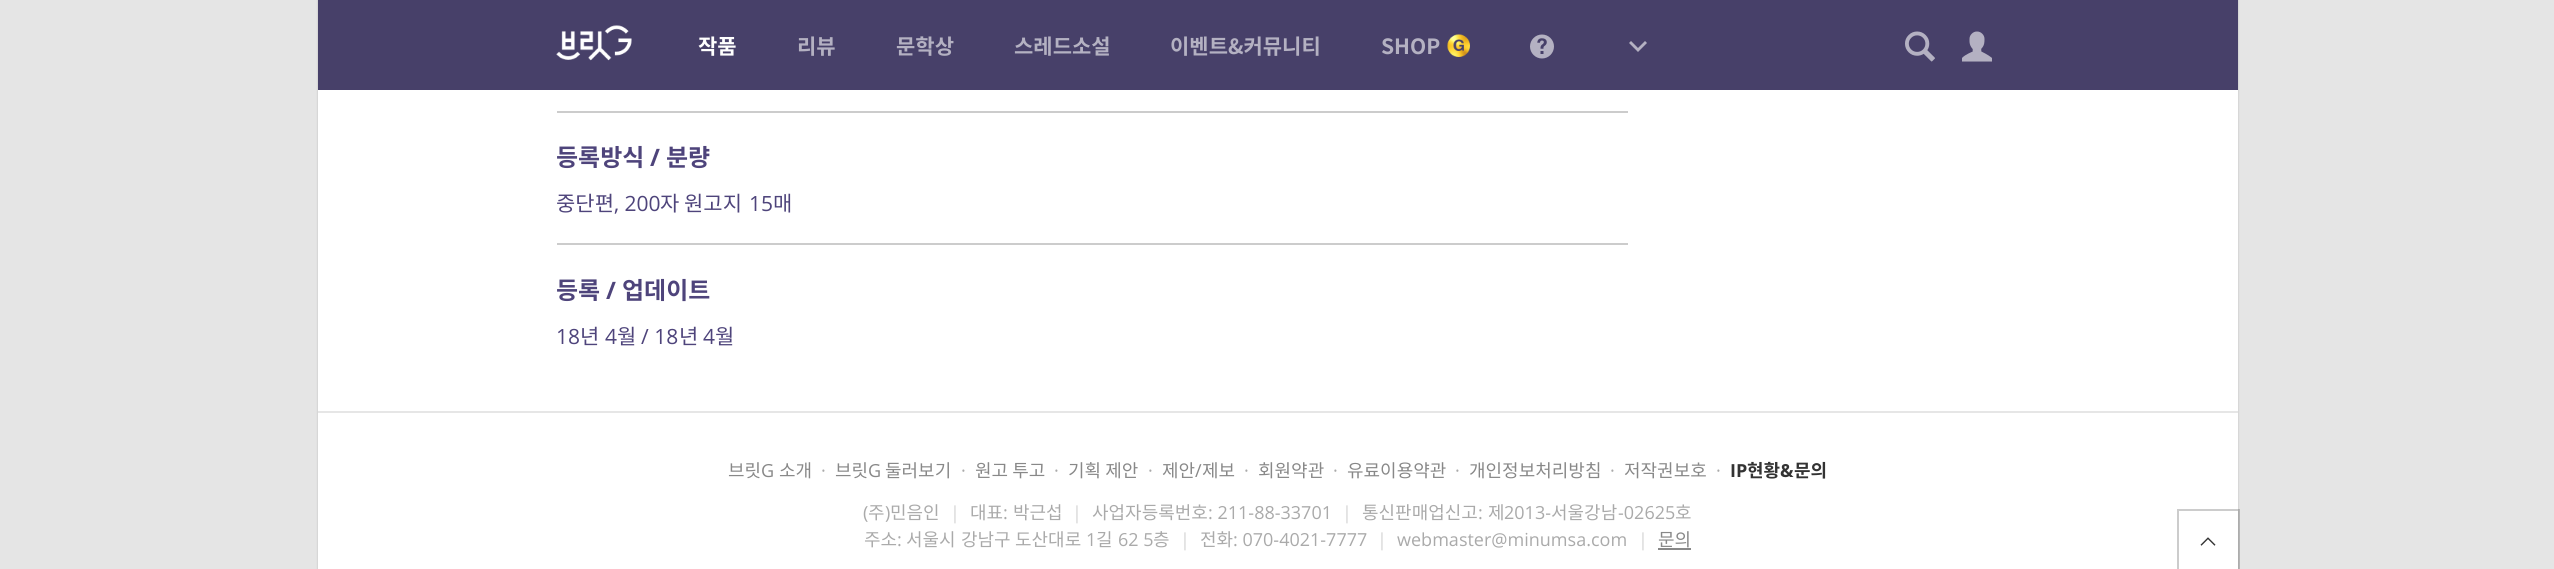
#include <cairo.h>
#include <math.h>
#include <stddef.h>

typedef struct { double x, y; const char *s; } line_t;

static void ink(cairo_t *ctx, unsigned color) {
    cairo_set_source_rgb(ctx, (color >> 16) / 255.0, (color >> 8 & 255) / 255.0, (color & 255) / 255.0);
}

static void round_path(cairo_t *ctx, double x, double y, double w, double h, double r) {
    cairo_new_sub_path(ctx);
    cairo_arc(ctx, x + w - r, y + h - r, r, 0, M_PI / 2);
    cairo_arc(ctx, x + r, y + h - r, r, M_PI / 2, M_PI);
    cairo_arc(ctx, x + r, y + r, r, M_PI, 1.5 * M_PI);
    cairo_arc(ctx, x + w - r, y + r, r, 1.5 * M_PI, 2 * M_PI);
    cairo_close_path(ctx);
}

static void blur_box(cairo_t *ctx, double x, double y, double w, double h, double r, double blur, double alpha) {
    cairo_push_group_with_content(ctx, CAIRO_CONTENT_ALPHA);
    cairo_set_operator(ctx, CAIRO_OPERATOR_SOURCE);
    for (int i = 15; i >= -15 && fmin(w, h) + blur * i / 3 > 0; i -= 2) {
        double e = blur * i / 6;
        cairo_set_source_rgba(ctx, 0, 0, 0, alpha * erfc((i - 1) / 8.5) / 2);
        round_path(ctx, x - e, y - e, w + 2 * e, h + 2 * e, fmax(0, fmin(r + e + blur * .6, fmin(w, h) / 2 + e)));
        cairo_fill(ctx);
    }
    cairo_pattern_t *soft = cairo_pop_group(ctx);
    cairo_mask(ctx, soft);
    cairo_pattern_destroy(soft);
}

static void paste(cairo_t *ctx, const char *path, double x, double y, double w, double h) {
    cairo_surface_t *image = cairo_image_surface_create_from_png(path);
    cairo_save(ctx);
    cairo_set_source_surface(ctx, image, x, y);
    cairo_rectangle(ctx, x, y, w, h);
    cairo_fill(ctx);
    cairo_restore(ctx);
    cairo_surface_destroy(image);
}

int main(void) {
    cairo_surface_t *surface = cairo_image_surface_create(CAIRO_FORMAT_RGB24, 2554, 569);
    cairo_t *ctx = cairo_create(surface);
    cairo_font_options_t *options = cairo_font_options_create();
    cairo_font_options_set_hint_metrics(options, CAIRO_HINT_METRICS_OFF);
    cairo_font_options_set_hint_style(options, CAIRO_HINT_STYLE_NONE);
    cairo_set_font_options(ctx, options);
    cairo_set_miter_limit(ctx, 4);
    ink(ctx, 0xE5E5E5);
    cairo_paint(ctx);
    ink(ctx, 0x000000);
    blur_box(ctx, 318, -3, 1920, 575, 0, 1, 0.2);
    ink(ctx, 0xFFFFFF);
    cairo_rectangle(ctx, 318, 90, 1920, 479);
    cairo_fill(ctx);
    ink(ctx, 0x474069);
    cairo_rectangle(ctx, 318, 0, 1920, 90);
    cairo_fill(ctx);
    paste(ctx, "media/1.png", 556, 25, 76, 36);
    cairo_select_font_face(ctx, "Noto Sans KR", CAIRO_FONT_SLANT_NORMAL, CAIRO_FONT_WEIGHT_BOLD);
    cairo_set_font_size(ctx, 21);
    ink(ctx, 0xFFFFFF);
    cairo_move_to(ctx, 698, 54);
    cairo_show_text(ctx, "작품");
    ink(ctx, 0xB4B1C2);
    {
        static const line_t items[] = {
            {797, 54, "리뷰"},
            {896, 54, "문학상"},
            {1014, 54, "스레드소설"},
            {1170, 54, "이벤트&커뮤니티"},
            {1381, 54, "SHOP"},
        };
        for (size_t i = 0; i < sizeof items / sizeof *items; i++) {
            cairo_move_to(ctx, items[i].x, items[i].y);
            cairo_show_text(ctx, items[i].s);
        }
    }
    paste(ctx, "media/2.png", 1447, 34, 23, 23);
    paste(ctx, "media/3.png", 1530, 34, 24, 25);
    cairo_new_path(ctx);
    cairo_move_to(ctx, 1638, 48);
    cairo_line_to(ctx, 1631, 41);
    cairo_line_to(ctx, 1629, 43);
    cairo_line_to(ctx, 1638, 52);
    cairo_line_to(ctx, 1647, 43);
    cairo_line_to(ctx, 1645, 41);
    cairo_close_path(ctx);
    cairo_fill(ctx);
    paste(ctx, "media/4.png", 1905, 31, 30, 31);
    paste(ctx, "media/5.png", 1962, 31, 30, 31);
    ink(ctx, 0xCCCCCC);
    cairo_rectangle(ctx, 557, 111, 1071, 2);
    cairo_fill(ctx);
    cairo_set_font_size(ctx, 24);
    ink(ctx, 0x4E447B);
    cairo_move_to(ctx, 556, 166);
    cairo_show_text(ctx, "등록방식");
    cairo_select_font_face(ctx, "Open Sans", CAIRO_FONT_SLANT_NORMAL, CAIRO_FONT_WEIGHT_BOLD);
    cairo_move_to(ctx, 650, 166);
    cairo_show_text(ctx, "/");
    cairo_select_font_face(ctx, "Noto Sans KR", CAIRO_FONT_SLANT_NORMAL, CAIRO_FONT_WEIGHT_BOLD);
    cairo_move_to(ctx, 666, 166);
    cairo_show_text(ctx, "분량");
    cairo_select_font_face(ctx, "Noto Sans KR", CAIRO_FONT_SLANT_NORMAL, CAIRO_FONT_WEIGHT_NORMAL);
    cairo_set_font_size(ctx, 21);
    cairo_move_to(ctx, 556, 211);
    cairo_show_text(ctx, "중단편");
    cairo_select_font_face(ctx, "Open Sans", CAIRO_FONT_SLANT_NORMAL, CAIRO_FONT_WEIGHT_NORMAL);
    cairo_move_to(ctx, 614, 211);
    cairo_show_text(ctx, ", 200");
    cairo_select_font_face(ctx, "Noto Sans KR", CAIRO_FONT_SLANT_NORMAL, CAIRO_FONT_WEIGHT_NORMAL);
    cairo_move_to(ctx, 660, 211);
    cairo_show_text(ctx, "자 원고지");
    cairo_select_font_face(ctx, "Open Sans", CAIRO_FONT_SLANT_NORMAL, CAIRO_FONT_WEIGHT_NORMAL);
    cairo_move_to(ctx, 749, 211);
    cairo_show_text(ctx, "15");
    cairo_select_font_face(ctx, "Noto Sans KR", CAIRO_FONT_SLANT_NORMAL, CAIRO_FONT_WEIGHT_NORMAL);
    cairo_move_to(ctx, 773, 211);
    cairo_show_text(ctx, "매");
    ink(ctx, 0xCCCCCC);
    cairo_rectangle(ctx, 557, 243, 1071, 2);
    cairo_fill(ctx);
    cairo_select_font_face(ctx, "Noto Sans KR", CAIRO_FONT_SLANT_NORMAL, CAIRO_FONT_WEIGHT_BOLD);
    cairo_set_font_size(ctx, 24);
    ink(ctx, 0x4E447B);
    cairo_move_to(ctx, 556, 299);
    cairo_show_text(ctx, "등록");
    cairo_select_font_face(ctx, "Open Sans", CAIRO_FONT_SLANT_NORMAL, CAIRO_FONT_WEIGHT_BOLD);
    cairo_move_to(ctx, 606, 299);
    cairo_show_text(ctx, "/");
    cairo_select_font_face(ctx, "Noto Sans KR", CAIRO_FONT_SLANT_NORMAL, CAIRO_FONT_WEIGHT_BOLD);
    cairo_move_to(ctx, 622, 299);
    cairo_show_text(ctx, "업데이트");
    cairo_select_font_face(ctx, "Open Sans", CAIRO_FONT_SLANT_NORMAL, CAIRO_FONT_WEIGHT_NORMAL);
    cairo_set_font_size(ctx, 21);
    cairo_move_to(ctx, 556, 344);
    cairo_show_text(ctx, "18");
    cairo_select_font_face(ctx, "Noto Sans KR", CAIRO_FONT_SLANT_NORMAL, CAIRO_FONT_WEIGHT_NORMAL);
    cairo_move_to(ctx, 580, 344);
    cairo_show_text(ctx, "년");
    cairo_select_font_face(ctx, "Open Sans", CAIRO_FONT_SLANT_NORMAL, CAIRO_FONT_WEIGHT_NORMAL);
    cairo_move_to(ctx, 605, 344);
    cairo_show_text(ctx, "4");
    cairo_select_font_face(ctx, "Noto Sans KR", CAIRO_FONT_SLANT_NORMAL, CAIRO_FONT_WEIGHT_NORMAL);
    cairo_move_to(ctx, 617, 344);
    cairo_show_text(ctx, "월");
    cairo_select_font_face(ctx, "Open Sans", CAIRO_FONT_SLANT_NORMAL, CAIRO_FONT_WEIGHT_NORMAL);
    cairo_move_to(ctx, 641, 344);
    cairo_show_text(ctx, "/ 18");
    cairo_select_font_face(ctx, "Noto Sans KR", CAIRO_FONT_SLANT_NORMAL, CAIRO_FONT_WEIGHT_NORMAL);
    cairo_move_to(ctx, 679, 344);
    cairo_show_text(ctx, "년");
    cairo_select_font_face(ctx, "Open Sans", CAIRO_FONT_SLANT_NORMAL, CAIRO_FONT_WEIGHT_NORMAL);
    cairo_move_to(ctx, 703, 344);
    cairo_show_text(ctx, "4");
    cairo_select_font_face(ctx, "Noto Sans KR", CAIRO_FONT_SLANT_NORMAL, CAIRO_FONT_WEIGHT_NORMAL);
    cairo_move_to(ctx, 715, 344);
    cairo_show_text(ctx, "월");
    ink(ctx, 0xE6E6E6);
    cairo_rectangle(ctx, 318, 411, 1920, 2);
    cairo_fill(ctx);
    cairo_set_font_size(ctx, 18);
    ink(ctx, 0x888888);
    cairo_move_to(ctx, 728, 477);
    cairo_show_text(ctx, "브릿");
    cairo_select_font_face(ctx, "Open Sans", CAIRO_FONT_SLANT_NORMAL, CAIRO_FONT_WEIGHT_NORMAL);
    cairo_move_to(ctx, 761, 477);
    cairo_show_text(ctx, "G");
    cairo_select_font_face(ctx, "Noto Sans KR", CAIRO_FONT_SLANT_NORMAL, CAIRO_FONT_WEIGHT_NORMAL);
    cairo_move_to(ctx, 779, 477);
    cairo_show_text(ctx, "소개");
    cairo_select_font_face(ctx, "Open Sans", CAIRO_FONT_SLANT_NORMAL, CAIRO_FONT_WEIGHT_NORMAL);
    ink(ctx, 0xAAAAAA);
    cairo_move_to(ctx, 821, 477);
    cairo_show_text(ctx, "·");
    cairo_select_font_face(ctx, "Noto Sans KR", CAIRO_FONT_SLANT_NORMAL, CAIRO_FONT_WEIGHT_NORMAL);
    ink(ctx, 0x888888);
    cairo_move_to(ctx, 835, 477);
    cairo_show_text(ctx, "브릿");
    cairo_select_font_face(ctx, "Open Sans", CAIRO_FONT_SLANT_NORMAL, CAIRO_FONT_WEIGHT_NORMAL);
    cairo_move_to(ctx, 868, 477);
    cairo_show_text(ctx, "G");
    cairo_select_font_face(ctx, "Noto Sans KR", CAIRO_FONT_SLANT_NORMAL, CAIRO_FONT_WEIGHT_NORMAL);
    cairo_move_to(ctx, 885, 477);
    cairo_show_text(ctx, "둘러보기");
    cairo_select_font_face(ctx, "Open Sans", CAIRO_FONT_SLANT_NORMAL, CAIRO_FONT_WEIGHT_NORMAL);
    ink(ctx, 0xAAAAAA);
    cairo_move_to(ctx, 961, 477);
    cairo_show_text(ctx, "·");
    cairo_select_font_face(ctx, "Noto Sans KR", CAIRO_FONT_SLANT_NORMAL, CAIRO_FONT_WEIGHT_NORMAL);
    ink(ctx, 0x888888);
    cairo_move_to(ctx, 975, 477);
    cairo_show_text(ctx, "원고 투고");
    cairo_select_font_face(ctx, "Open Sans", CAIRO_FONT_SLANT_NORMAL, CAIRO_FONT_WEIGHT_NORMAL);
    ink(ctx, 0xAAAAAA);
    cairo_move_to(ctx, 1054, 477);
    cairo_show_text(ctx, "·");
    cairo_select_font_face(ctx, "Noto Sans KR", CAIRO_FONT_SLANT_NORMAL, CAIRO_FONT_WEIGHT_NORMAL);
    ink(ctx, 0x888888);
    cairo_move_to(ctx, 1068, 477);
    cairo_show_text(ctx, "기획 제안");
    cairo_select_font_face(ctx, "Open Sans", CAIRO_FONT_SLANT_NORMAL, CAIRO_FONT_WEIGHT_NORMAL);
    ink(ctx, 0xAAAAAA);
    cairo_move_to(ctx, 1148, 477);
    cairo_show_text(ctx, "·");
    cairo_select_font_face(ctx, "Noto Sans KR", CAIRO_FONT_SLANT_NORMAL, CAIRO_FONT_WEIGHT_NORMAL);
    ink(ctx, 0x888888);
    cairo_move_to(ctx, 1162, 477);
    cairo_show_text(ctx, "제안");
    cairo_select_font_face(ctx, "Open Sans", CAIRO_FONT_SLANT_NORMAL, CAIRO_FONT_WEIGHT_NORMAL);
    cairo_move_to(ctx, 1195, 477);
    cairo_show_text(ctx, "/");
    cairo_select_font_face(ctx, "Noto Sans KR", CAIRO_FONT_SLANT_NORMAL, CAIRO_FONT_WEIGHT_NORMAL);
    cairo_move_to(ctx, 1202, 477);
    cairo_show_text(ctx, "제보");
    cairo_select_font_face(ctx, "Open Sans", CAIRO_FONT_SLANT_NORMAL, CAIRO_FONT_WEIGHT_NORMAL);
    ink(ctx, 0xAAAAAA);
    cairo_move_to(ctx, 1244, 477);
    cairo_show_text(ctx, "·");
    cairo_select_font_face(ctx, "Noto Sans KR", CAIRO_FONT_SLANT_NORMAL, CAIRO_FONT_WEIGHT_NORMAL);
    ink(ctx, 0x888888);
    cairo_move_to(ctx, 1258, 477);
    cairo_show_text(ctx, "회원약관");
    cairo_select_font_face(ctx, "Open Sans", CAIRO_FONT_SLANT_NORMAL, CAIRO_FONT_WEIGHT_NORMAL);
    ink(ctx, 0xAAAAAA);
    cairo_move_to(ctx, 1333, 477);
    cairo_show_text(ctx, "·");
    cairo_select_font_face(ctx, "Noto Sans KR", CAIRO_FONT_SLANT_NORMAL, CAIRO_FONT_WEIGHT_NORMAL);
    ink(ctx, 0x888888);
    cairo_move_to(ctx, 1347, 477);
    cairo_show_text(ctx, "유료이용약관");
    cairo_select_font_face(ctx, "Open Sans", CAIRO_FONT_SLANT_NORMAL, CAIRO_FONT_WEIGHT_NORMAL);
    ink(ctx, 0xAAAAAA);
    cairo_move_to(ctx, 1455, 477);
    cairo_show_text(ctx, "·");
    cairo_select_font_face(ctx, "Noto Sans KR", CAIRO_FONT_SLANT_NORMAL, CAIRO_FONT_WEIGHT_NORMAL);
    ink(ctx, 0x888888);
    cairo_move_to(ctx, 1469, 477);
    cairo_show_text(ctx, "개인정보처리방침");
    cairo_select_font_face(ctx, "Open Sans", CAIRO_FONT_SLANT_NORMAL, CAIRO_FONT_WEIGHT_NORMAL);
    ink(ctx, 0xAAAAAA);
    cairo_move_to(ctx, 1610, 477);
    cairo_show_text(ctx, "·");
    cairo_select_font_face(ctx, "Noto Sans KR", CAIRO_FONT_SLANT_NORMAL, CAIRO_FONT_WEIGHT_NORMAL);
    ink(ctx, 0x888888);
    cairo_move_to(ctx, 1624, 477);
    cairo_show_text(ctx, "저작권보호");
    cairo_select_font_face(ctx, "Open Sans", CAIRO_FONT_SLANT_NORMAL, CAIRO_FONT_WEIGHT_NORMAL);
    ink(ctx, 0xAAAAAA);
    cairo_move_to(ctx, 1716, 477);
    cairo_show_text(ctx, "·");
    cairo_select_font_face(ctx, "Open Sans", CAIRO_FONT_SLANT_NORMAL, CAIRO_FONT_WEIGHT_BOLD);
    ink(ctx, 0x333333);
    cairo_move_to(ctx, 1730, 477);
    cairo_show_text(ctx, "IP");
    cairo_select_font_face(ctx, "Noto Sans KR", CAIRO_FONT_SLANT_NORMAL, CAIRO_FONT_WEIGHT_BOLD);
    cairo_move_to(ctx, 1747, 477);
    cairo_show_text(ctx, "현황");
    cairo_select_font_face(ctx, "Open Sans", CAIRO_FONT_SLANT_NORMAL, CAIRO_FONT_WEIGHT_BOLD);
    cairo_move_to(ctx, 1780, 477);
    cairo_show_text(ctx, "&");
    cairo_select_font_face(ctx, "Noto Sans KR", CAIRO_FONT_SLANT_NORMAL, CAIRO_FONT_WEIGHT_BOLD);
    cairo_move_to(ctx, 1794, 477);
    cairo_show_text(ctx, "문의");
    cairo_select_font_face(ctx, "Open Sans", CAIRO_FONT_SLANT_NORMAL, CAIRO_FONT_WEIGHT_NORMAL);
    ink(ctx, 0xAAAAAA);
    cairo_move_to(ctx, 863, 519);
    cairo_show_text(ctx, "(");
    cairo_select_font_face(ctx, "Noto Sans KR", CAIRO_FONT_SLANT_NORMAL, CAIRO_FONT_WEIGHT_NORMAL);
    cairo_move_to(ctx, 868, 519);
    cairo_show_text(ctx, "주");
    cairo_select_font_face(ctx, "Open Sans", CAIRO_FONT_SLANT_NORMAL, CAIRO_FONT_WEIGHT_NORMAL);
    cairo_move_to(ctx, 885, 519);
    cairo_show_text(ctx, ")");
    cairo_select_font_face(ctx, "Noto Sans KR", CAIRO_FONT_SLANT_NORMAL, CAIRO_FONT_WEIGHT_NORMAL);
    cairo_move_to(ctx, 890, 519);
    cairo_show_text(ctx, "민음인");
    cairo_select_font_face(ctx, "Open Sans", CAIRO_FONT_SLANT_NORMAL, CAIRO_FONT_WEIGHT_NORMAL);
    ink(ctx, 0xD5D5D5);
    cairo_move_to(ctx, 950, 519);
    cairo_show_text(ctx, "|");
    cairo_select_font_face(ctx, "Noto Sans KR", CAIRO_FONT_SLANT_NORMAL, CAIRO_FONT_WEIGHT_NORMAL);
    ink(ctx, 0xAAAAAA);
    cairo_move_to(ctx, 970, 519);
    cairo_show_text(ctx, "대표");
    cairo_select_font_face(ctx, "Open Sans", CAIRO_FONT_SLANT_NORMAL, CAIRO_FONT_WEIGHT_NORMAL);
    cairo_move_to(ctx, 1003, 519);
    cairo_show_text(ctx, ":");
    cairo_select_font_face(ctx, "Noto Sans KR", CAIRO_FONT_SLANT_NORMAL, CAIRO_FONT_WEIGHT_NORMAL);
    cairo_move_to(ctx, 1013, 519);
    cairo_show_text(ctx, "박근섭");
    cairo_select_font_face(ctx, "Open Sans", CAIRO_FONT_SLANT_NORMAL, CAIRO_FONT_WEIGHT_NORMAL);
    ink(ctx, 0xD5D5D5);
    cairo_move_to(ctx, 1072, 519);
    cairo_show_text(ctx, "|");
    cairo_select_font_face(ctx, "Noto Sans KR", CAIRO_FONT_SLANT_NORMAL, CAIRO_FONT_WEIGHT_NORMAL);
    ink(ctx, 0xAAAAAA);
    cairo_move_to(ctx, 1092, 519);
    cairo_show_text(ctx, "사업자등록번호");
    cairo_select_font_face(ctx, "Open Sans", CAIRO_FONT_SLANT_NORMAL, CAIRO_FONT_WEIGHT_NORMAL);
    cairo_move_to(ctx, 1208, 519);
    cairo_show_text(ctx, ": 211-88-33701");
    ink(ctx, 0xD5D5D5);
    cairo_move_to(ctx, 1342, 519);
    cairo_show_text(ctx, "|");
    cairo_select_font_face(ctx, "Noto Sans KR", CAIRO_FONT_SLANT_NORMAL, CAIRO_FONT_WEIGHT_NORMAL);
    ink(ctx, 0xAAAAAA);
    cairo_move_to(ctx, 1362, 519);
    cairo_show_text(ctx, "통신판매업신고");
    cairo_select_font_face(ctx, "Open Sans", CAIRO_FONT_SLANT_NORMAL, CAIRO_FONT_WEIGHT_NORMAL);
    cairo_move_to(ctx, 1478, 519);
    cairo_show_text(ctx, ":");
    cairo_select_font_face(ctx, "Noto Sans KR", CAIRO_FONT_SLANT_NORMAL, CAIRO_FONT_WEIGHT_NORMAL);
    cairo_move_to(ctx, 1488, 519);
    cairo_show_text(ctx, "제");
    cairo_select_font_face(ctx, "Open Sans", CAIRO_FONT_SLANT_NORMAL, CAIRO_FONT_WEIGHT_NORMAL);
    cairo_move_to(ctx, 1504, 519);
    cairo_show_text(ctx, "2013-");
    cairo_select_font_face(ctx, "Noto Sans KR", CAIRO_FONT_SLANT_NORMAL, CAIRO_FONT_WEIGHT_NORMAL);
    cairo_move_to(ctx, 1551, 519);
    cairo_show_text(ctx, "서울강남");
    cairo_select_font_face(ctx, "Open Sans", CAIRO_FONT_SLANT_NORMAL, CAIRO_FONT_WEIGHT_NORMAL);
    cairo_move_to(ctx, 1618, 519);
    cairo_show_text(ctx, "-02625");
    cairo_select_font_face(ctx, "Noto Sans KR", CAIRO_FONT_SLANT_NORMAL, CAIRO_FONT_WEIGHT_NORMAL);
    cairo_move_to(ctx, 1675, 519);
    cairo_show_text(ctx, "호");
    cairo_move_to(ctx, 864, 546);
    cairo_show_text(ctx, "주소");
    cairo_select_font_face(ctx, "Open Sans", CAIRO_FONT_SLANT_NORMAL, CAIRO_FONT_WEIGHT_NORMAL);
    cairo_move_to(ctx, 897, 546);
    cairo_show_text(ctx, ":");
    cairo_select_font_face(ctx, "Noto Sans KR", CAIRO_FONT_SLANT_NORMAL, CAIRO_FONT_WEIGHT_NORMAL);
    {
        static const line_t items[] = {
            {906, 546, "서울시"},
            {961, 546, "강남구"},
            {1015, 546, "도산대로"},
        };
        for (size_t i = 0; i < sizeof items / sizeof *items; i++) {
            cairo_move_to(ctx, items[i].x, items[i].y);
            cairo_show_text(ctx, items[i].s);
        }
    }
    cairo_select_font_face(ctx, "Open Sans", CAIRO_FONT_SLANT_NORMAL, CAIRO_FONT_WEIGHT_NORMAL);
    cairo_move_to(ctx, 1086, 546);
    cairo_show_text(ctx, "1");
    cairo_select_font_face(ctx, "Noto Sans KR", CAIRO_FONT_SLANT_NORMAL, CAIRO_FONT_WEIGHT_NORMAL);
    cairo_move_to(ctx, 1096, 546);
    cairo_show_text(ctx, "길");
    cairo_select_font_face(ctx, "Open Sans", CAIRO_FONT_SLANT_NORMAL, CAIRO_FONT_WEIGHT_NORMAL);
    cairo_move_to(ctx, 1118, 546);
    cairo_show_text(ctx, "62 5");
    cairo_select_font_face(ctx, "Noto Sans KR", CAIRO_FONT_SLANT_NORMAL, CAIRO_FONT_WEIGHT_NORMAL);
    cairo_move_to(ctx, 1153, 546);
    cairo_show_text(ctx, "층");
    cairo_select_font_face(ctx, "Open Sans", CAIRO_FONT_SLANT_NORMAL, CAIRO_FONT_WEIGHT_NORMAL);
    ink(ctx, 0xD5D5D5);
    cairo_move_to(ctx, 1180, 546);
    cairo_show_text(ctx, "|");
    cairo_select_font_face(ctx, "Noto Sans KR", CAIRO_FONT_SLANT_NORMAL, CAIRO_FONT_WEIGHT_NORMAL);
    ink(ctx, 0xAAAAAA);
    cairo_move_to(ctx, 1200, 546);
    cairo_show_text(ctx, "전화");
    cairo_select_font_face(ctx, "Open Sans", CAIRO_FONT_SLANT_NORMAL, CAIRO_FONT_WEIGHT_NORMAL);
    cairo_move_to(ctx, 1233, 546);
    cairo_show_text(ctx, ": 070-4021-7777");
    ink(ctx, 0xD5D5D5);
    cairo_move_to(ctx, 1377, 546);
    cairo_show_text(ctx, "|");
    ink(ctx, 0xAAAAAA);
    cairo_move_to(ctx, 1397, 546);
    cairo_show_text(ctx, "webmaster@minumsa.com");
    ink(ctx, 0xD5D5D5);
    cairo_move_to(ctx, 1638, 546);
    cairo_show_text(ctx, "|");
    cairo_select_font_face(ctx, "Noto Sans KR", CAIRO_FONT_SLANT_NORMAL, CAIRO_FONT_WEIGHT_NORMAL);
    ink(ctx, 0x888888);
    cairo_move_to(ctx, 1658, 546);
    cairo_show_text(ctx, "문의");
    cairo_rectangle(ctx, 1658, 548, 33, 2);
    cairo_fill(ctx);
    paste(ctx, "media/6.png", 2200, 537, 16, 9);
    cairo_rectangle(ctx, 2178, 510, 61, 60);
    cairo_set_source_rgba(ctx, 0, 0, 0, 0.2);
    cairo_stroke(ctx);
    cairo_surface_write_to_png(surface, "image.png");
    cairo_font_options_destroy(options);
    cairo_destroy(ctx);
    cairo_surface_destroy(surface);
    return 0;
}
